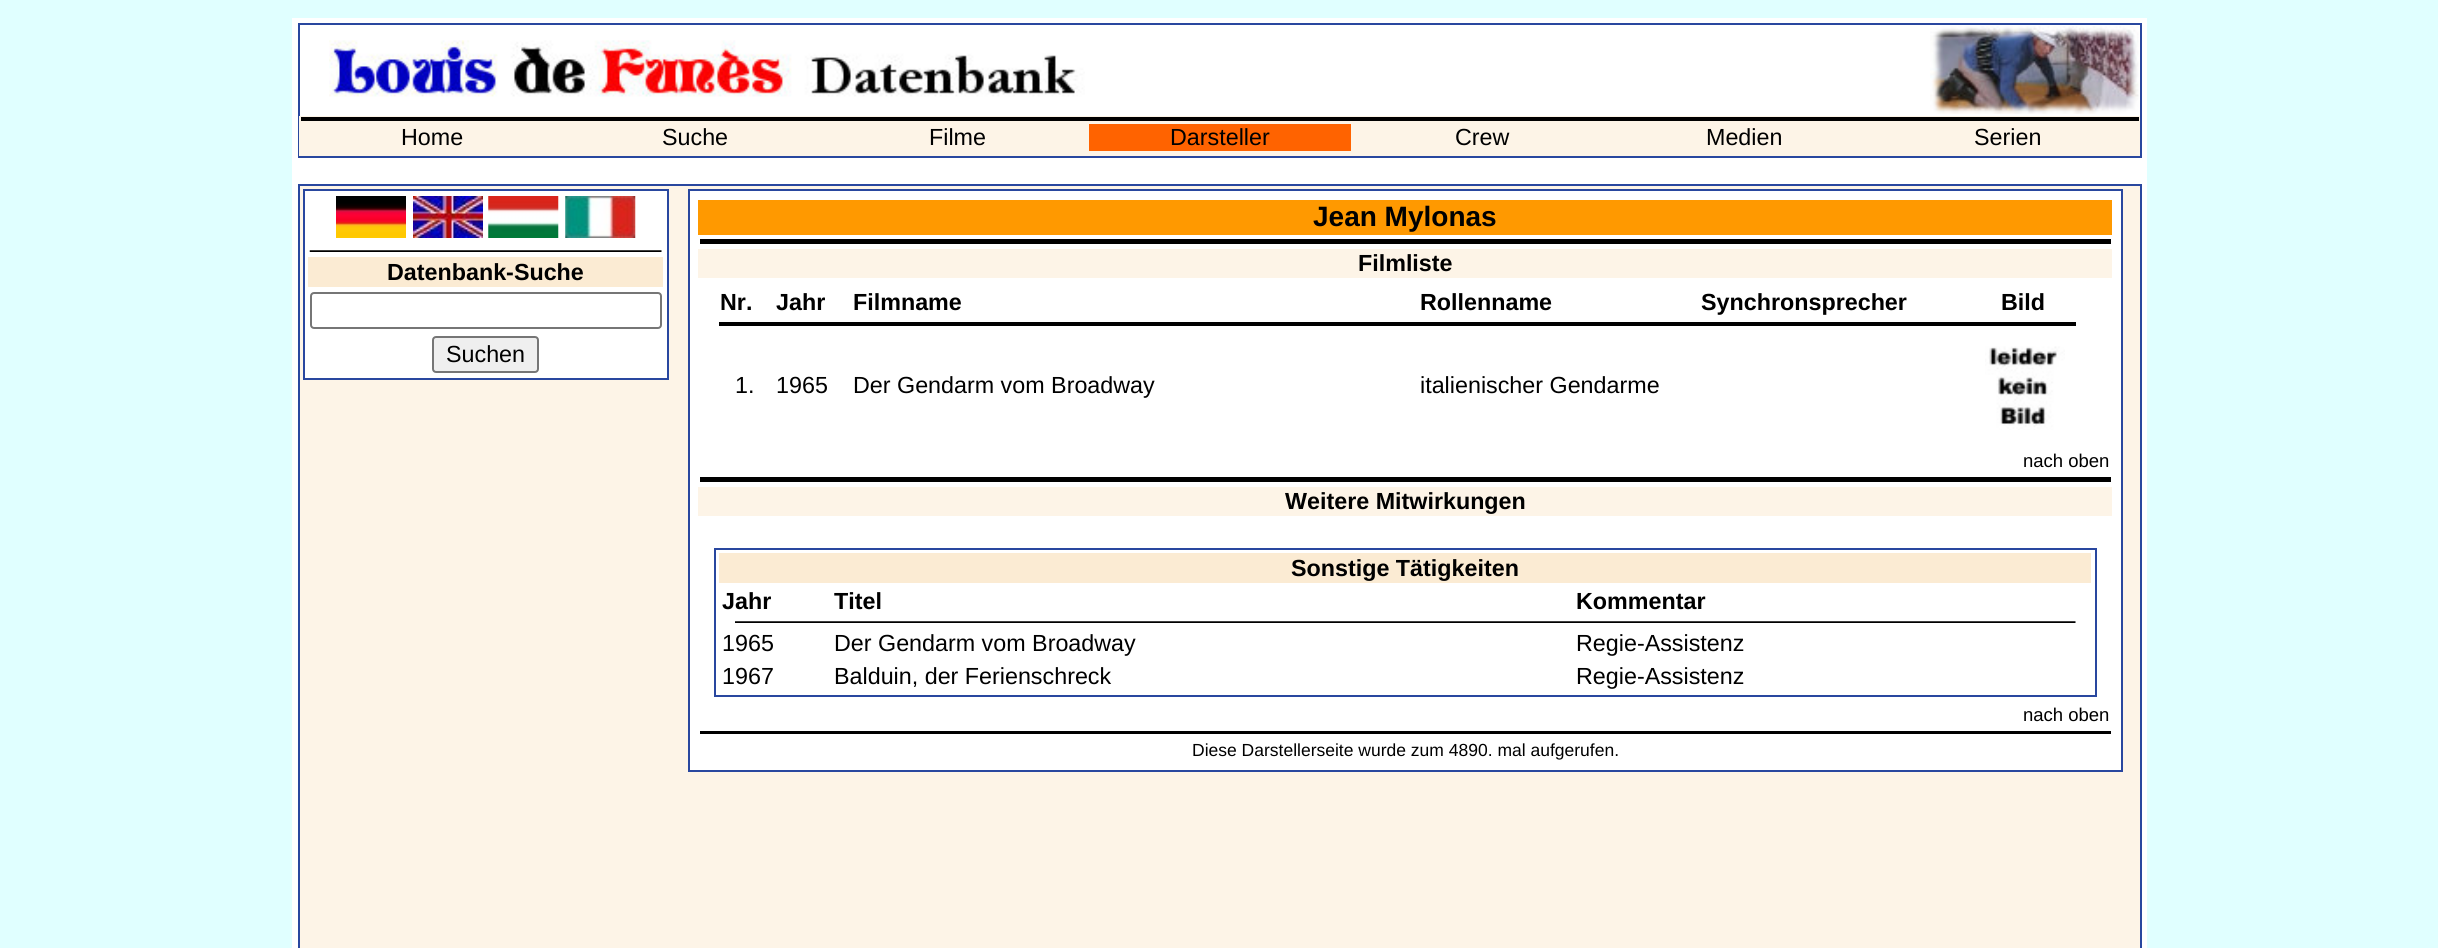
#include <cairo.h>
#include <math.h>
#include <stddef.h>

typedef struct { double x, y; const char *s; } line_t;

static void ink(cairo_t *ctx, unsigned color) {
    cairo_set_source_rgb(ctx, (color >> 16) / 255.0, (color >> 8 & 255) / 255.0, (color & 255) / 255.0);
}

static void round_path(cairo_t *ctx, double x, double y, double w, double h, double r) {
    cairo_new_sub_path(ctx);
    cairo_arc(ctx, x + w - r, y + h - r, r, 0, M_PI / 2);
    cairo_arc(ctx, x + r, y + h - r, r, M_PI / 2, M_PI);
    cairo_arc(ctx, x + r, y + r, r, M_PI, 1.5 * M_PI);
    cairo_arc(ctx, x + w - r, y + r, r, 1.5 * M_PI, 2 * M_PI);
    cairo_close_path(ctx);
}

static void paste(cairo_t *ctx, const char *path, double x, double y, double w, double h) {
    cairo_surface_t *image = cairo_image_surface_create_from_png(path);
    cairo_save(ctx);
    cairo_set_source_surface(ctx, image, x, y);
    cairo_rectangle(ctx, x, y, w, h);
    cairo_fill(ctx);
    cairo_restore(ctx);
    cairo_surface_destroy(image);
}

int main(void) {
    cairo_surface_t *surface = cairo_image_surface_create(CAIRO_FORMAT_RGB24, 2438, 948);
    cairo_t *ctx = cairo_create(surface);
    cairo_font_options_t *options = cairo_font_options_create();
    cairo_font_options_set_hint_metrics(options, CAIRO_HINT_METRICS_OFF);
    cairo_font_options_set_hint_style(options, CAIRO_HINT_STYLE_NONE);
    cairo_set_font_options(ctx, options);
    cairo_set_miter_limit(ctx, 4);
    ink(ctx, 0xE0FFFF);
    cairo_paint(ctx);
    ink(ctx, 0xFFFFFF);
    cairo_rectangle(ctx, 292, 18, 1855, 930);
    cairo_fill(ctx);
    cairo_rectangle(ctx, 299, 24, 1842, 133);
    ink(ctx, 0x29479F);
    cairo_stroke(ctx);
    paste(ctx, "media/1.png", 329, 40, 756, 57);
    paste(ctx, "media/2.png", 1930, 26, 209, 88);
    ink(ctx, 0xFDF4E7);
    cairo_rectangle(ctx, 299, 116, 1841, 40);
    cairo_fill(ctx);
    ink(ctx, 0x000000);
    cairo_rectangle(ctx, 301, 117, 1838, 4);
    cairo_fill(ctx);
    cairo_select_font_face(ctx, "Liberation Sans", CAIRO_FONT_SLANT_NORMAL, CAIRO_FONT_WEIGHT_NORMAL);
    cairo_set_font_size(ctx, 23.3);
    {
        static const line_t items[] = {
            {401, 145, "Home"},
            {662, 145, "Suche"},
            {929, 145, "Filme"},
        };
        for (size_t i = 0; i < sizeof items / sizeof *items; i++) {
            cairo_move_to(ctx, items[i].x, items[i].y);
            cairo_show_text(ctx, items[i].s);
        }
    }
    ink(ctx, 0xFF6300);
    cairo_rectangle(ctx, 1089, 124, 262, 27);
    cairo_fill(ctx);
    ink(ctx, 0x000000);
    {
        static const line_t items[] = {
            {1170, 145, "Darsteller"},
            {1455, 145, "Crew"},
            {1706, 145, "Medien"},
            {1974, 145, "Serien"},
        };
        for (size_t i = 0; i < sizeof items / sizeof *items; i++) {
            cairo_move_to(ctx, items[i].x, items[i].y);
            cairo_show_text(ctx, items[i].s);
        }
    }
    ink(ctx, 0xFDF4E7);
    cairo_rectangle(ctx, 299, 185, 1842, 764);
    cairo_fill_preserve(ctx);
    ink(ctx, 0x29479F);
    cairo_stroke(ctx);
    ink(ctx, 0xFFFFFF);
    cairo_rectangle(ctx, 304, 190, 364, 189);
    cairo_fill_preserve(ctx);
    ink(ctx, 0x29479F);
    cairo_stroke(ctx);
    paste(ctx, "media/3.png", 336, 196, 70, 42);
    paste(ctx, "media/4.png", 413, 196, 70, 42);
    paste(ctx, "media/5.png", 488, 196, 71, 42);
    paste(ctx, "media/6.png", 565, 196, 71, 42);
    paste(ctx, "media/7.png", 309, 250, 353, 2);
    ink(ctx, 0xFBEBD3);
    cairo_rectangle(ctx, 308, 257, 355, 30);
    cairo_fill(ctx);
    cairo_select_font_face(ctx, "Liberation Sans", CAIRO_FONT_SLANT_NORMAL, CAIRO_FONT_WEIGHT_BOLD);
    ink(ctx, 0x000000);
    cairo_move_to(ctx, 387, 280);
    cairo_show_text(ctx, "Datenbank-Suche");
    round_path(ctx, 311, 293, 350, 35, 3);
    ink(ctx, 0x767676);
    cairo_stroke(ctx);
    ink(ctx, 0xEFEFEF);
    round_path(ctx, 433, 337, 105, 35, 3);
    cairo_fill_preserve(ctx);
    ink(ctx, 0x767676);
    cairo_stroke(ctx);
    cairo_select_font_face(ctx, "Liberation Sans", CAIRO_FONT_SLANT_NORMAL, CAIRO_FONT_WEIGHT_NORMAL);
    ink(ctx, 0x000000);
    cairo_move_to(ctx, 446, 362);
    cairo_show_text(ctx, "Suchen");
    ink(ctx, 0xFFFFFF);
    cairo_rectangle(ctx, 689, 190, 1433, 581);
    cairo_fill_preserve(ctx);
    ink(ctx, 0x29479F);
    cairo_stroke(ctx);
    ink(ctx, 0xFF9900);
    cairo_rectangle(ctx, 698, 200, 1414, 35);
    cairo_fill(ctx);
    cairo_select_font_face(ctx, "Liberation Sans", CAIRO_FONT_SLANT_NORMAL, CAIRO_FONT_WEIGHT_BOLD);
    cairo_set_font_size(ctx, 28);
    ink(ctx, 0x000000);
    cairo_move_to(ctx, 1313, 226);
    cairo_show_text(ctx, "Jean Mylonas");
    cairo_rectangle(ctx, 700, 239, 1411, 5);
    cairo_fill(ctx);
    ink(ctx, 0xFDF4E7);
    cairo_rectangle(ctx, 698, 249, 1414, 29);
    cairo_fill(ctx);
    cairo_set_font_size(ctx, 23.3);
    ink(ctx, 0x000000);
    {
        static const line_t items[] = {
            {1358, 271, "Filmliste"},
            {720, 310, "Nr."},
            {776, 310, "Jahr"},
            {853, 310, "Filmname"},
            {1420, 310, "Rollenname"},
            {1701, 310, "Synchronsprecher"},
            {2001, 310, "Bild"},
        };
        for (size_t i = 0; i < sizeof items / sizeof *items; i++) {
            cairo_move_to(ctx, items[i].x, items[i].y);
            cairo_show_text(ctx, items[i].s);
        }
    }
    cairo_rectangle(ctx, 719, 322, 1357, 4);
    cairo_fill(ctx);
    cairo_select_font_face(ctx, "Liberation Sans", CAIRO_FONT_SLANT_NORMAL, CAIRO_FONT_WEIGHT_NORMAL);
    {
        static const line_t items[] = {
            {735, 393, "1."},
            {776, 393, "1965"},
            {853, 393, "Der Gendarm vom Broadway"},
            {1420, 393, "italienischer Gendarme"},
        };
        for (size_t i = 0; i < sizeof items / sizeof *items; i++) {
            cairo_move_to(ctx, items[i].x, items[i].y);
            cairo_show_text(ctx, items[i].s);
        }
    }
    paste(ctx, "media/8.png", 1985, 346, 80, 84);
    cairo_set_font_size(ctx, 18.5);
    cairo_move_to(ctx, 2023, 467);
    cairo_show_text(ctx, "nach oben");
    cairo_rectangle(ctx, 700, 477, 1411, 5);
    cairo_fill(ctx);
    ink(ctx, 0xFDF4E7);
    cairo_rectangle(ctx, 698, 487, 1414, 29);
    cairo_fill(ctx);
    cairo_select_font_face(ctx, "Liberation Sans", CAIRO_FONT_SLANT_NORMAL, CAIRO_FONT_WEIGHT_BOLD);
    cairo_set_font_size(ctx, 23.3);
    ink(ctx, 0x000000);
    cairo_move_to(ctx, 1285, 509);
    cairo_show_text(ctx, "Weitere Mitwirkungen");
    cairo_rectangle(ctx, 715, 549, 1381, 147);
    ink(ctx, 0x29479F);
    cairo_stroke(ctx);
    ink(ctx, 0xFBEBD3);
    cairo_rectangle(ctx, 719, 553, 1372, 30);
    cairo_fill(ctx);
    ink(ctx, 0x000000);
    {
        static const line_t items[] = {
            {1291, 576, "Sonstige Tätigkeiten"},
            {722, 609, "Jahr"},
            {834, 609, "Titel"},
            {1576, 609, "Kommentar"},
        };
        for (size_t i = 0; i < sizeof items / sizeof *items; i++) {
            cairo_move_to(ctx, items[i].x, items[i].y);
            cairo_show_text(ctx, items[i].s);
        }
    }
    paste(ctx, "media/9.png", 735, 621, 1341, 2);
    cairo_select_font_face(ctx, "Liberation Sans", CAIRO_FONT_SLANT_NORMAL, CAIRO_FONT_WEIGHT_NORMAL);
    {
        static const line_t items[] = {
            {722, 651, "1965"},
            {834, 651, "Der Gendarm vom Broadway"},
            {1576, 651, "Regie-Assistenz"},
            {722, 684, "1967"},
            {834, 684, "Balduin, der Ferienschreck"},
            {1576, 684, "Regie-Assistenz"},
        };
        for (size_t i = 0; i < sizeof items / sizeof *items; i++) {
            cairo_move_to(ctx, items[i].x, items[i].y);
            cairo_show_text(ctx, items[i].s);
        }
    }
    cairo_set_font_size(ctx, 18.5);
    cairo_move_to(ctx, 2023, 721);
    cairo_show_text(ctx, "nach oben");
    cairo_rectangle(ctx, 700, 731, 1411, 3);
    cairo_fill(ctx);
    cairo_set_font_size(ctx, 17.5);
    cairo_move_to(ctx, 1192, 756);
    cairo_show_text(ctx, "Diese Darstellerseite wurde zum 4890. mal aufgerufen.");
    cairo_surface_write_to_png(surface, "image.png");
    cairo_font_options_destroy(options);
    cairo_destroy(ctx);
    cairo_surface_destroy(surface);
    return 0;
}
